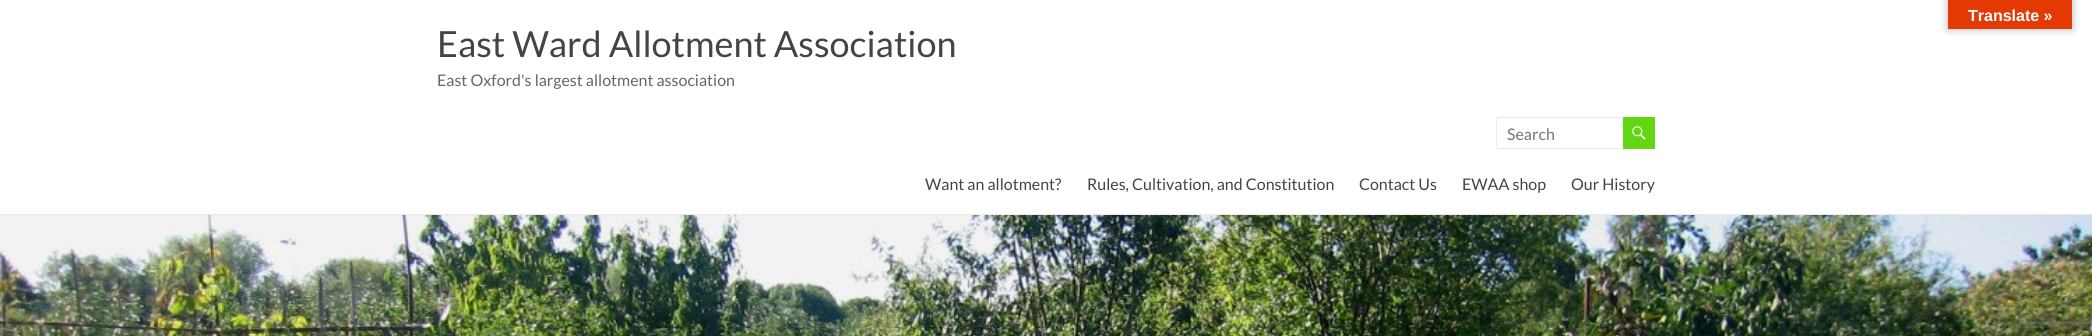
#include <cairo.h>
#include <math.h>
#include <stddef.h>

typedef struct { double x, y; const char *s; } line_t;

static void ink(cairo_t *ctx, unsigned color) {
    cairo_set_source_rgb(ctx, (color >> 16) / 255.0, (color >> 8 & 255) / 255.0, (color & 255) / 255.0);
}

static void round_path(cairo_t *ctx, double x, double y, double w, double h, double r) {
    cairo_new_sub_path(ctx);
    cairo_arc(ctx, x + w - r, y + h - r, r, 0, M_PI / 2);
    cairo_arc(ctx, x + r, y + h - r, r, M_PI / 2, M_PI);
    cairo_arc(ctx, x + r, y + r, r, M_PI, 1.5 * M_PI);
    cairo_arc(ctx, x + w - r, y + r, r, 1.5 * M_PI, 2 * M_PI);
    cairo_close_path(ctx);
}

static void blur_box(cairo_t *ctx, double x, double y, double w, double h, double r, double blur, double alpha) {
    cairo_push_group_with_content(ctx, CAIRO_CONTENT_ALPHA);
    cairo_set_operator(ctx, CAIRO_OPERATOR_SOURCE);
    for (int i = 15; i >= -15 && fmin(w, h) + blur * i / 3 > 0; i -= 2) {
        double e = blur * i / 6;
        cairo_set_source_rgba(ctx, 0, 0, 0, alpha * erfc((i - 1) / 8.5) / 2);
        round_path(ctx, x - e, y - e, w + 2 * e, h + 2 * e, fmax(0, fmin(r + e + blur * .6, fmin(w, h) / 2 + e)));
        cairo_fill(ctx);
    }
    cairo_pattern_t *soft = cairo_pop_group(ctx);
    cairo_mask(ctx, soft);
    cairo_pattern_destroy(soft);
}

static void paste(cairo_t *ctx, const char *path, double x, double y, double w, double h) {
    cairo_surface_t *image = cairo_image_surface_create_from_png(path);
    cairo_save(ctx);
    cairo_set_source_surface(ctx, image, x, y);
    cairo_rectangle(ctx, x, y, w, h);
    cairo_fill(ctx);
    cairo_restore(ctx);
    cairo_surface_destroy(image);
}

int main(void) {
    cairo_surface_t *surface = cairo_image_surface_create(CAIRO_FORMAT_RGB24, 2092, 336);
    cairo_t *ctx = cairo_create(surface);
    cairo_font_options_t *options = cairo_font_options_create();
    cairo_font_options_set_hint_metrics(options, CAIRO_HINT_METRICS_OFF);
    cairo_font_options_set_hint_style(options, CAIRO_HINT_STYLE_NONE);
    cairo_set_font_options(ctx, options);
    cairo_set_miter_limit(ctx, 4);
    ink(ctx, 0xFFFFFF);
    cairo_paint(ctx);
    ink(ctx, 0x000000);
    blur_box(ctx, 1948, 0, 124, 29, 0, 4.5, 0.3);
    ink(ctx, 0xE53904);
    cairo_rectangle(ctx, 1948, 0, 124, 29);
    cairo_fill(ctx);
    cairo_select_font_face(ctx, "Liberation Sans", CAIRO_FONT_SLANT_NORMAL, CAIRO_FONT_WEIGHT_BOLD);
    cairo_set_font_size(ctx, 16);
    ink(ctx, 0xFFFFFF);
    cairo_move_to(ctx, 1968, 21);
    cairo_show_text(ctx, "Translate »");
    ink(ctx, 0xEAEAEA);
    cairo_rectangle(ctx, 0, 214, 2092, 1);
    cairo_fill(ctx);
    cairo_select_font_face(ctx, "Lato", CAIRO_FONT_SLANT_NORMAL, CAIRO_FONT_WEIGHT_NORMAL);
    cairo_set_font_size(ctx, 36);
    ink(ctx, 0x444444);
    cairo_move_to(ctx, 437, 57);
    cairo_show_text(ctx, "East Ward Allotment Association");
    cairo_set_font_size(ctx, 16);
    ink(ctx, 0x666666);
    cairo_move_to(ctx, 437, 86);
    cairo_show_text(ctx, "East Oxford's largest allotment association");
    round_path(ctx, 1496.5, 117.5, 129, 31, 2.5);
    ink(ctx, 0xEAEAEA);
    cairo_set_line_width(ctx, 1);
    cairo_stroke(ctx);
    ink(ctx, 0x757575);
    cairo_move_to(ctx, 1507, 140);
    cairo_show_text(ctx, "Search");
    ink(ctx, 0x63D611);
    cairo_rectangle(ctx, 1623, 117, 32, 32);
    cairo_fill(ctx);
    paste(ctx, "media/1.png", 1632, 126, 14, 14);
    ink(ctx, 0x444444);
    {
        static const line_t items[] = {
            {925, 190, "Want an allotment?"},
            {1087, 190, "Rules, Cultivation, and Constitution"},
            {1359, 190, "Contact Us"},
            {1462, 190, "EWAA shop"},
            {1571, 190, "Our History"},
        };
        for (size_t i = 0; i < sizeof items / sizeof *items; i++) {
            cairo_move_to(ctx, items[i].x, items[i].y);
            cairo_show_text(ctx, items[i].s);
        }
    }
    paste(ctx, "media/2.png", 0, 215, 2092, 121);
    cairo_save(ctx);
    cairo_set_fill_rule(ctx, CAIRO_FILL_RULE_EVEN_ODD);
    cairo_new_path(ctx);
    cairo_move_to(ctx, 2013, 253);
    cairo_line_to(ctx, 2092, 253);
    cairo_line_to(ctx, 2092, 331);
    cairo_line_to(ctx, 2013, 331);
    cairo_close_path(ctx);
    cairo_move_to(ctx, 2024, 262);
    cairo_line_to(ctx, 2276, 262);
    cairo_curve_to(ctx, 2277, 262, 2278, 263, 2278, 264);
    cairo_line_to(ctx, 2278, 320);
    cairo_curve_to(ctx, 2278, 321, 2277, 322, 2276, 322);
    cairo_line_to(ctx, 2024, 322);
    cairo_curve_to(ctx, 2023, 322, 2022, 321, 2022, 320);
    cairo_line_to(ctx, 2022, 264);
    cairo_curve_to(ctx, 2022, 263, 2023, 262, 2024, 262);
    cairo_close_path(ctx);
    cairo_clip(ctx);
    ink(ctx, 0x808080);
    blur_box(ctx, 2022, 262, 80, 60, 2, 2.5, 1);
    cairo_restore(ctx);
    cairo_surface_write_to_png(surface, "image.png");
    cairo_font_options_destroy(options);
    cairo_destroy(ctx);
    cairo_surface_destroy(surface);
    return 0;
}
